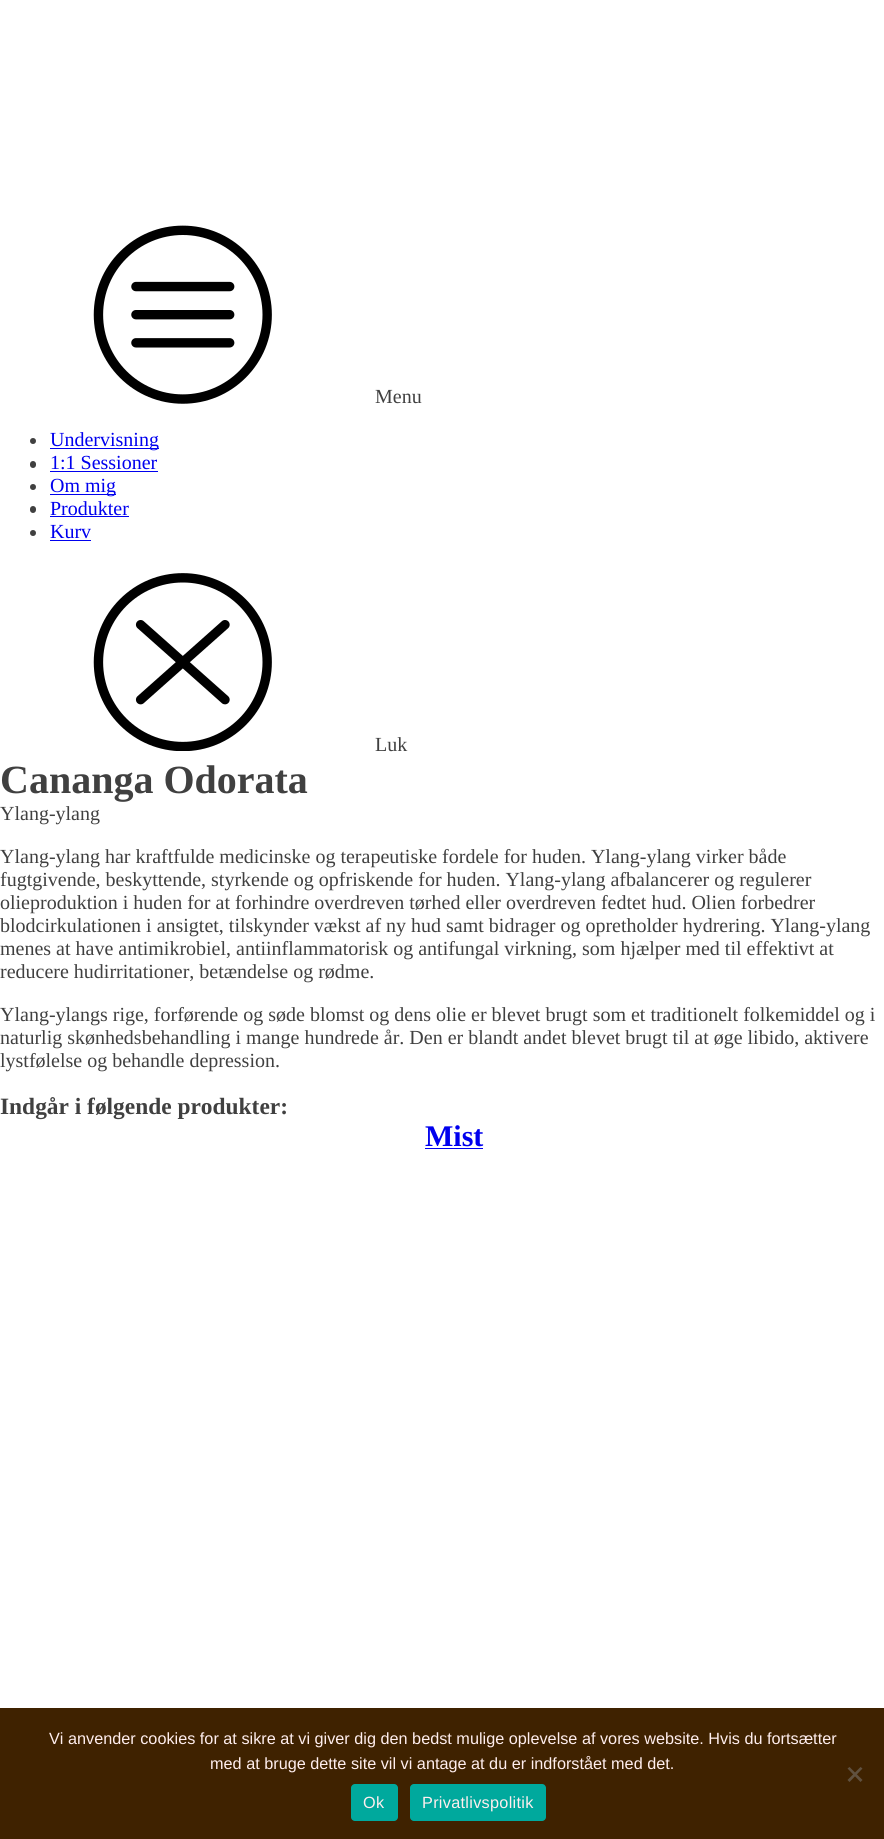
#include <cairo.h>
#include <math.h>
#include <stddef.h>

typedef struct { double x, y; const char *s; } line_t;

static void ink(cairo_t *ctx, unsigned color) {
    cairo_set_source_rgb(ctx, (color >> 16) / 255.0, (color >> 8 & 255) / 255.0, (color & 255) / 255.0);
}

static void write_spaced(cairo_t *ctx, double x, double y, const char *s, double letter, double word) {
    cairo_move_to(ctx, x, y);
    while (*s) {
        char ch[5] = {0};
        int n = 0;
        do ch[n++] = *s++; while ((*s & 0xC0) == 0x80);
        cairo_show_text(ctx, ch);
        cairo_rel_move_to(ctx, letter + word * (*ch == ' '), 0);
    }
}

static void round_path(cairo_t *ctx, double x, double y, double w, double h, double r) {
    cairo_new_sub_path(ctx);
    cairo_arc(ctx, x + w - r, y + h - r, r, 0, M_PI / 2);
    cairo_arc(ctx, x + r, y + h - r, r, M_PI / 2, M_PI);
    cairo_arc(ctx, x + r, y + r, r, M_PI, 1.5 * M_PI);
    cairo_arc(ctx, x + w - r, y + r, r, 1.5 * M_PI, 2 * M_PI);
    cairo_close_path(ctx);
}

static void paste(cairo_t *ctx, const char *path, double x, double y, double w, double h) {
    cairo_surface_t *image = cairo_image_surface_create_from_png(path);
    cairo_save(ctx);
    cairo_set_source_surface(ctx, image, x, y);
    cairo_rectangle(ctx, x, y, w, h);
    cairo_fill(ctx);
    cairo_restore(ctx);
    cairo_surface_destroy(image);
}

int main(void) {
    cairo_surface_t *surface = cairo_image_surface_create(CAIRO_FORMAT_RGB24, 884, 1839);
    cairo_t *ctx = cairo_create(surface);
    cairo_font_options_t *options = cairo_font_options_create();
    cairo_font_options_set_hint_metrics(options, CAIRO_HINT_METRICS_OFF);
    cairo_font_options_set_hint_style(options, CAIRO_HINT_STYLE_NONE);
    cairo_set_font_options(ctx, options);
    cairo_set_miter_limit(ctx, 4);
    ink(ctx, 0xFFFFFF);
    cairo_paint(ctx);
    paste(ctx, "media/1.png", 93, 225, 179, 179);
    cairo_select_font_face(ctx, "Liberation Serif", CAIRO_FONT_SLANT_NORMAL, CAIRO_FONT_WEIGHT_NORMAL);
    cairo_set_font_size(ctx, 20);
    ink(ctx, 0x404040);
    cairo_move_to(ctx, 375, 403);
    cairo_show_text(ctx, "Menu");
    cairo_new_path(ctx);
    cairo_arc(ctx, 33, 441, 3, 0, 2 * M_PI);
    cairo_fill(ctx);
    ink(ctx, 0x0000EE);
    cairo_rectangle(ctx, 50, 448, 109, 1);
    cairo_fill(ctx);
    cairo_move_to(ctx, 50, 446);
    cairo_show_text(ctx, "Undervisning");
    ink(ctx, 0x404040);
    round_path(ctx, 30, 461, 6, 7, 3);
    cairo_fill(ctx);
    ink(ctx, 0x0000EE);
    cairo_move_to(ctx, 50, 469);
    cairo_show_text(ctx, "1:1 Sessioner");
    cairo_rectangle(ctx, 50, 471, 108, 1);
    cairo_fill(ctx);
    ink(ctx, 0x404040);
    cairo_arc(ctx, 33, 487, 3, 0, 2 * M_PI);
    cairo_fill(ctx);
    ink(ctx, 0x0000EE);
    cairo_rectangle(ctx, 50, 494, 66, 1);
    cairo_fill(ctx);
    cairo_move_to(ctx, 50, 492);
    cairo_show_text(ctx, "Om mig");
    ink(ctx, 0x404040);
    round_path(ctx, 30, 506, 6, 7, 3);
    cairo_fill(ctx);
    ink(ctx, 0x0000EE);
    cairo_move_to(ctx, 50, 515);
    cairo_show_text(ctx, "Produkter");
    cairo_rectangle(ctx, 50, 516, 79, 1);
    cairo_fill(ctx);
    ink(ctx, 0x404040);
    cairo_arc(ctx, 33, 533, 3, 0, 2 * M_PI);
    cairo_fill(ctx);
    ink(ctx, 0x0000EE);
    cairo_move_to(ctx, 50, 538);
    cairo_show_text(ctx, "Kurv");
    cairo_rectangle(ctx, 50, 540, 41, 1);
    cairo_fill(ctx);
    paste(ctx, "media/2.png", 93, 573, 179, 178);
    ink(ctx, 0x404040);
    cairo_move_to(ctx, 375, 751);
    cairo_show_text(ctx, "Luk");
    cairo_select_font_face(ctx, "Liberation Serif", CAIRO_FONT_SLANT_NORMAL, CAIRO_FONT_WEIGHT_BOLD);
    cairo_set_font_size(ctx, 40);
    cairo_move_to(ctx, 0, 793);
    cairo_show_text(ctx, "Cananga Odorata");
    cairo_select_font_face(ctx, "Liberation Serif", CAIRO_FONT_SLANT_NORMAL, CAIRO_FONT_WEIGHT_NORMAL);
    cairo_set_font_size(ctx, 20);
    {
        static const line_t items[] = {
            {0, 820, "Ylang-ylang"},
            {0, 863, "Ylang-ylang har kraftfulde medicinske og terapeutiske fordele for huden. Ylang-ylang virker både"},
            {0, 886, "fugtgivende, beskyttende, styrkende og opfriskende for huden. Ylang-ylang afbalancerer og regulerer"},
            {0, 909, "olieproduktion i huden for at forhindre overdreven tørhed eller overdreven fedtet hud. Olien forbedrer"},
            {0, 932, "blodcirkulationen i ansigtet, tilskynder vækst af ny hud samt bidrager og opretholder hydrering. Ylang-ylang"},
            {0, 955, "menes at have antimikrobiel, antiinflammatorisk og antifungal virkning, som hjælper med til effektivt at"},
            {0, 978, "reducere hudirritationer, betændelse og rødme."},
            {0, 1021, "Ylang-ylangs rige, forførende og søde blomst og dens olie er blevet brugt som et traditionelt folkemiddel og i"},
            {0, 1044, "naturlig skønhedsbehandling i mange hundrede år. Den er blandt andet blevet brugt til at øge libido, aktivere"},
            {0, 1067, "lystfølelse og behandle depression."},
        };
        for (size_t i = 0; i < sizeof items / sizeof *items; i++) {
            cairo_move_to(ctx, items[i].x, items[i].y);
            cairo_show_text(ctx, items[i].s);
        }
    }
    cairo_select_font_face(ctx, "Liberation Serif", CAIRO_FONT_SLANT_NORMAL, CAIRO_FONT_WEIGHT_BOLD);
    cairo_set_font_size(ctx, 23.4);
    cairo_move_to(ctx, 0, 1114);
    cairo_show_text(ctx, "Indgår i følgende produkter:");
    cairo_set_font_size(ctx, 30);
    ink(ctx, 0x0000EE);
    cairo_move_to(ctx, 425, 1146);
    cairo_show_text(ctx, "Mist");
    cairo_rectangle(ctx, 425, 1148, 58, 1);
    cairo_fill(ctx);
    ink(ctx, 0x3F2200);
    cairo_rectangle(ctx, 0, 1708, 884, 131);
    cairo_fill(ctx);
    cairo_select_font_face(ctx, "Liberation Sans", CAIRO_FONT_SLANT_NORMAL, CAIRO_FONT_WEIGHT_NORMAL);
    cairo_set_font_size(ctx, 16.25);
    ink(ctx, 0xFFEEEE);
    cairo_move_to(ctx, 49, 1744);
    cairo_show_text(ctx, "Vi anvender cookies for at sikre at vi giver dig den bedst mulige oplevelse af vores website. Hvis du fortsætter");
    cairo_move_to(ctx, 210, 1769);
    cairo_show_text(ctx, "med at bruge dette site vil vi antage at du er indforstået med det.");
    ink(ctx, 0x605140);
    cairo_new_path(ctx);
    cairo_move_to(ctx, 860.5, 1767);
    cairo_line_to(ctx, 862.5, 1768.5);
    cairo_line_to(ctx, 849.5, 1782);
    cairo_line_to(ctx, 847.5, 1780);
    cairo_close_path(ctx);
    cairo_fill(ctx);
    cairo_new_path(ctx);
    cairo_move_to(ctx, 847.5, 1768.5);
    cairo_line_to(ctx, 849.5, 1767);
    cairo_line_to(ctx, 862.5, 1780);
    cairo_line_to(ctx, 860.5, 1782);
    cairo_close_path(ctx);
    cairo_fill(ctx);
    ink(ctx, 0x00A99D);
    round_path(ctx, 351, 1784, 47, 37, 4);
    cairo_fill(ctx);
    ink(ctx, 0xFFEEEE);
    write_spaced(ctx, 363, 1808, "Ok", 0.3, 0);
    ink(ctx, 0x00A99D);
    round_path(ctx, 410, 1784, 136, 37, 4);
    cairo_fill(ctx);
    ink(ctx, 0xFFEEEE);
    write_spaced(ctx, 422, 1808, "Privatlivspolitik", 0.3, 0);
    cairo_surface_write_to_png(surface, "image.png");
    cairo_font_options_destroy(options);
    cairo_destroy(ctx);
    cairo_surface_destroy(surface);
    return 0;
}
